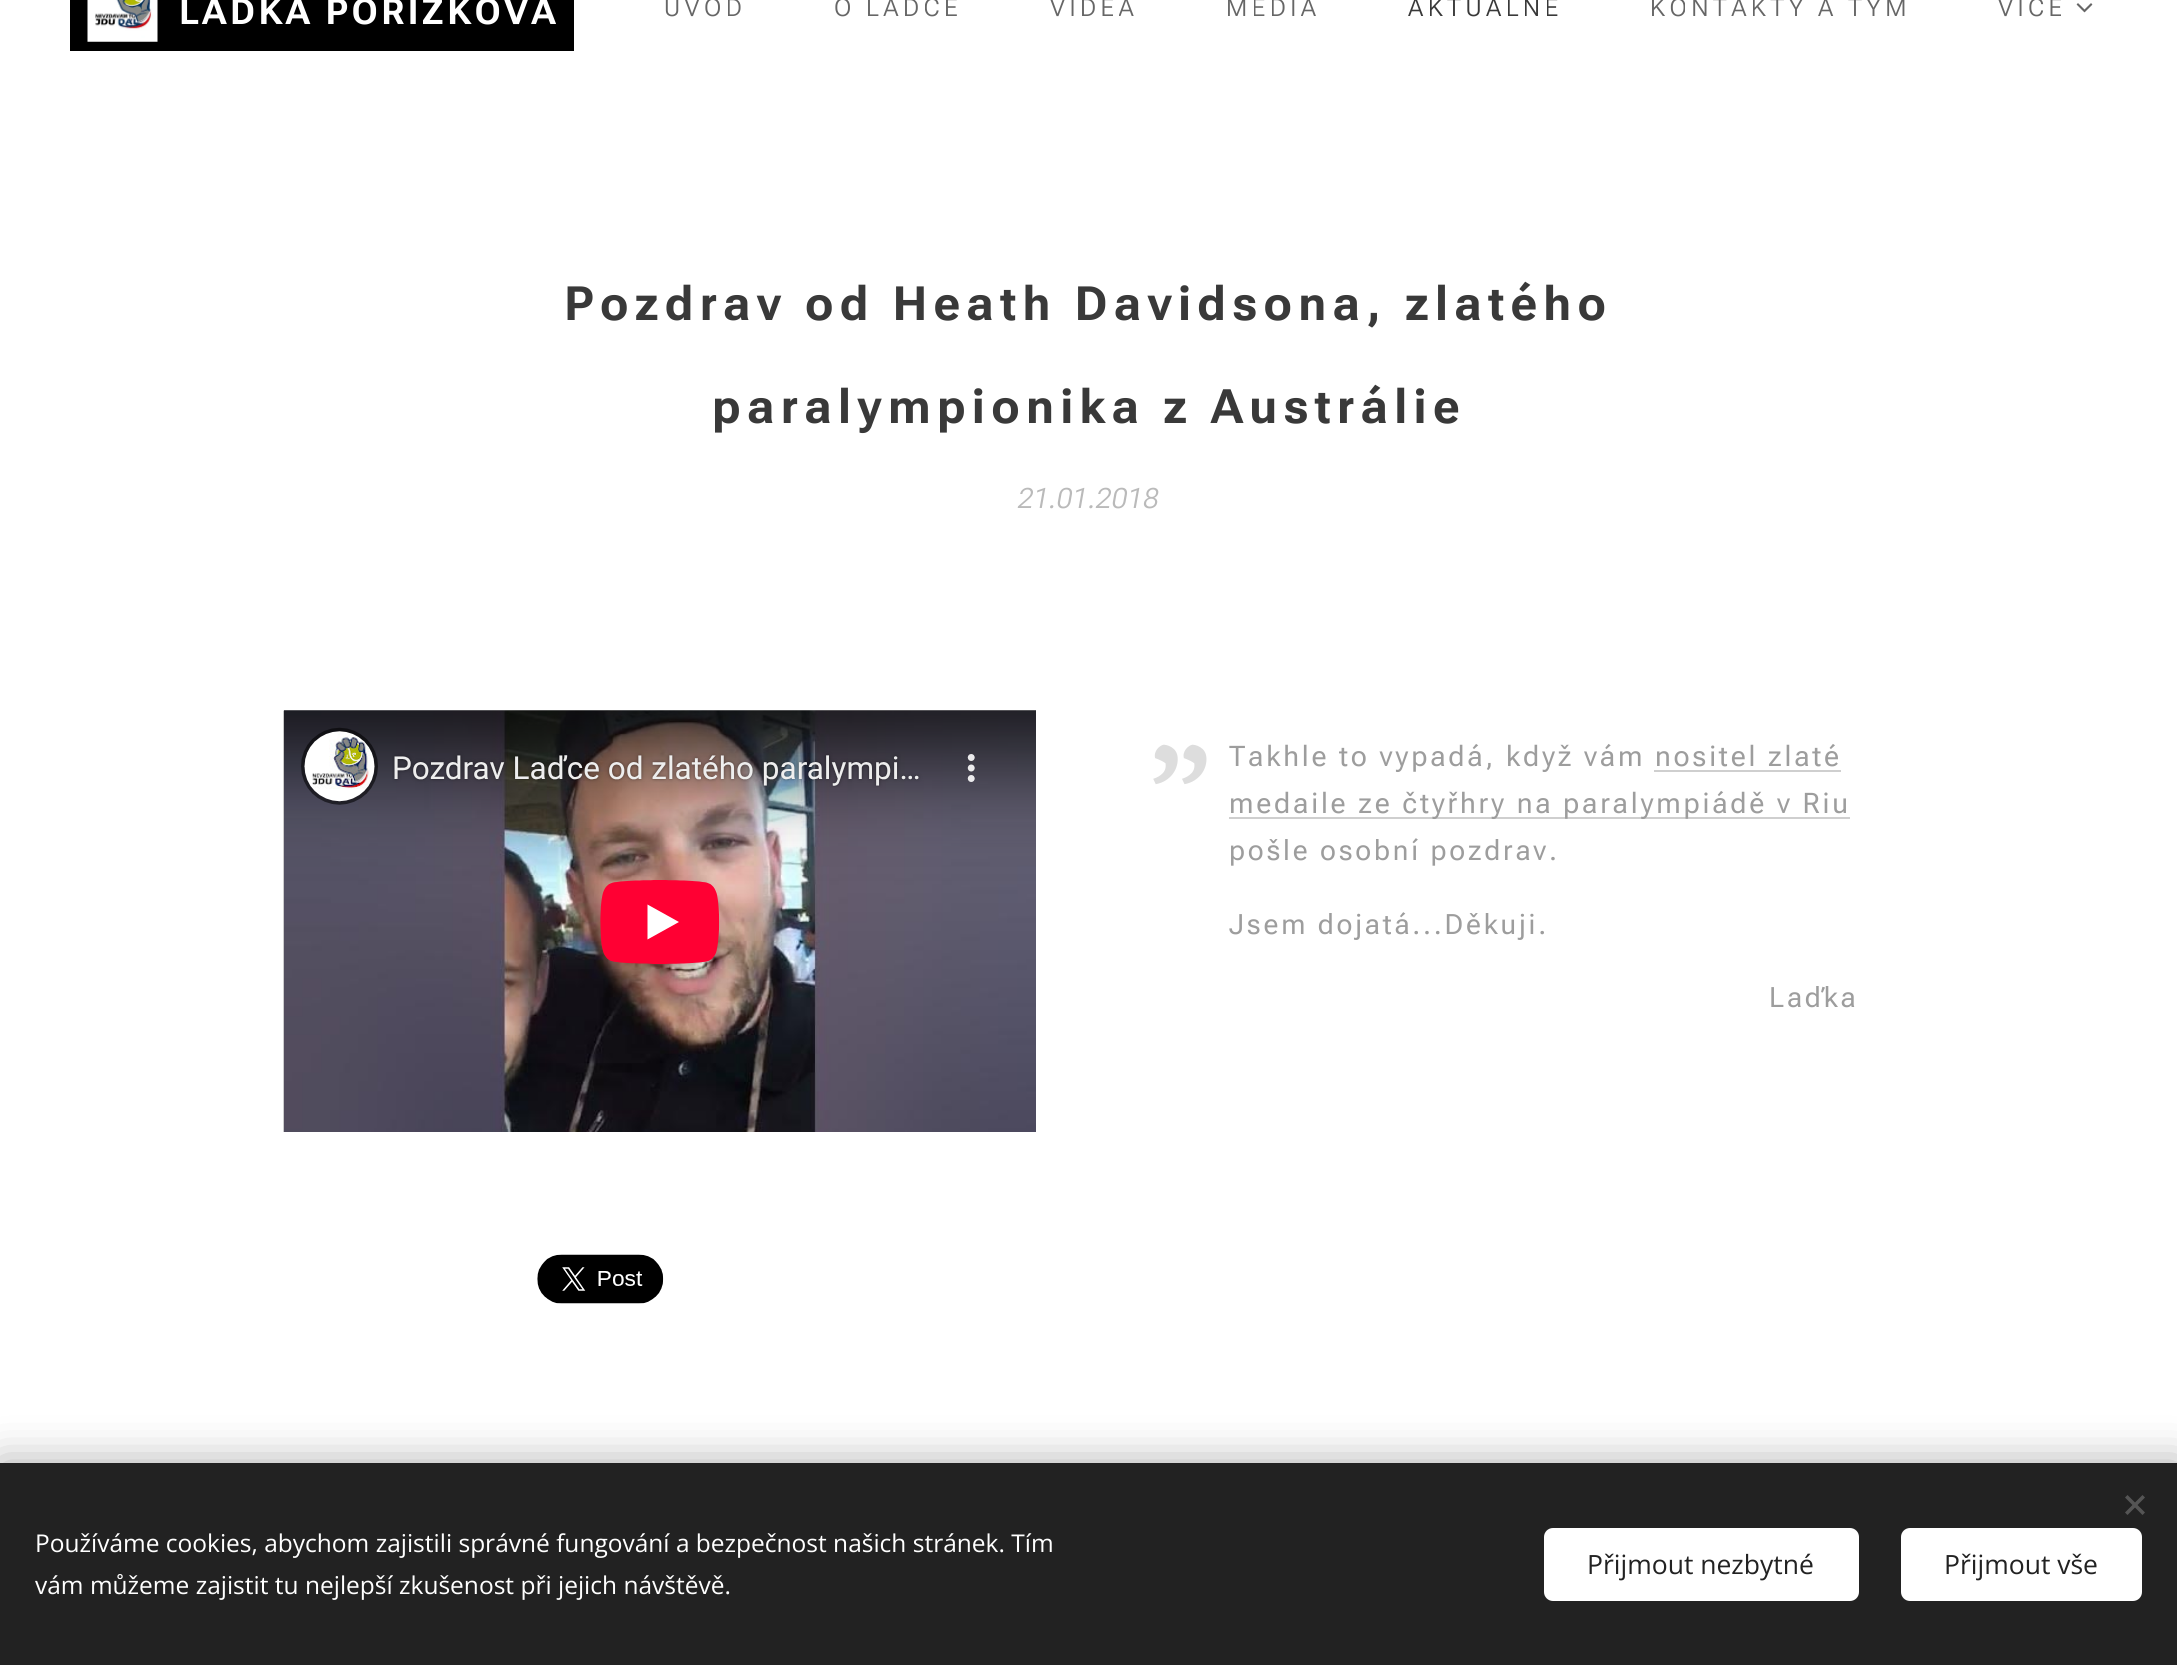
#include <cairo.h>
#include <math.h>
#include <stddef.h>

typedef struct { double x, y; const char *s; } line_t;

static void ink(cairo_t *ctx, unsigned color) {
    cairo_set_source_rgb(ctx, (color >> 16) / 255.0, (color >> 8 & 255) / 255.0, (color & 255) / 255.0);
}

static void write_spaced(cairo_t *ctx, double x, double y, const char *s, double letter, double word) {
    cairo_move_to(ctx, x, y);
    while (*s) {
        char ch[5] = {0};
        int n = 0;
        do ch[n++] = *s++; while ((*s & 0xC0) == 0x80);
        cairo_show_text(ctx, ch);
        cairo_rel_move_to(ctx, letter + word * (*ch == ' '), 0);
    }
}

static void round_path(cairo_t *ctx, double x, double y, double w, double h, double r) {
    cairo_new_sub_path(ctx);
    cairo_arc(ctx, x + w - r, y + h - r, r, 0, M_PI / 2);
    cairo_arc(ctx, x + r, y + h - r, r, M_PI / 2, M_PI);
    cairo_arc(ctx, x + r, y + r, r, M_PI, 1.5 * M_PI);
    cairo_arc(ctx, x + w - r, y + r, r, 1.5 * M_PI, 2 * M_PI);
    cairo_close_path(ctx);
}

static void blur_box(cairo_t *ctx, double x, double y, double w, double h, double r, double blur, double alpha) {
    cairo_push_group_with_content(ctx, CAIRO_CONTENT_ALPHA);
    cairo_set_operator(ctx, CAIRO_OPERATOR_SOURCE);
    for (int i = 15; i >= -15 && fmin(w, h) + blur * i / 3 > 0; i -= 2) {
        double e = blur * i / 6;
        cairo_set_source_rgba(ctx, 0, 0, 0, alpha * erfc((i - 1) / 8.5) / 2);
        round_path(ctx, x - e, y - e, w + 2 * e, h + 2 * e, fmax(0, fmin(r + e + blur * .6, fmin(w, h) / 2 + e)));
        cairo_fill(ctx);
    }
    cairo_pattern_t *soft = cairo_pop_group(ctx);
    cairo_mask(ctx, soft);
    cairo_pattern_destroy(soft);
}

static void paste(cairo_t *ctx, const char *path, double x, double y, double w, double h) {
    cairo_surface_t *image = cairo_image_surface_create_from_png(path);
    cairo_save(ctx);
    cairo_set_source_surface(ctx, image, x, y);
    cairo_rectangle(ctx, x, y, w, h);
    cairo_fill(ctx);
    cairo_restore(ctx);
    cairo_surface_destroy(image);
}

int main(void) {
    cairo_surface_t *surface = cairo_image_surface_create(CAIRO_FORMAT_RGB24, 2177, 1665);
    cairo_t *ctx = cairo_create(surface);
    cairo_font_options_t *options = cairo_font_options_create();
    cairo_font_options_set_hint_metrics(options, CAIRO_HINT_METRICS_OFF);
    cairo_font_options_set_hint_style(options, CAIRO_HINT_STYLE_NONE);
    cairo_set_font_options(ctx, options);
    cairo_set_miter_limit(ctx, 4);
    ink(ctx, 0xFFFFFF);
    cairo_paint(ctx);
    ink(ctx, 0x000000);
    cairo_rectangle(ctx, 70, 0, 504, 51);
    cairo_fill(ctx);
    paste(ctx, "media/1.png", 87, 0, 71, 42);
    cairo_select_font_face(ctx, "Roboto Flex", CAIRO_FONT_SLANT_NORMAL, CAIRO_FONT_WEIGHT_BOLD);
    cairo_set_font_size(ctx, 35.75);
    ink(ctx, 0xFFFFFF);
    write_spaced(ctx, 179, 24, "LAĎKA POŘÍZKOVÁ", 3.5, 0);
    cairo_select_font_face(ctx, "Roboto Flex Light", CAIRO_FONT_SLANT_NORMAL, CAIRO_FONT_WEIGHT_NORMAL);
    cairo_set_font_size(ctx, 24.5);
    ink(ctx, 0x666666);
    {
        static const line_t items[] = {
            {664, 16, "ÚVOD"},
            {834, 16, "O LAĎCE"},
            {1050, 16, "VIDEA"},
            {1226, 16, "MÉDIA"},
        };
        for (size_t i = 0; i < sizeof items / sizeof *items; i++) {
            write_spaced(ctx, items[i].x, items[i].y, items[i].s, 4.4, 0);
        }
    }
    ink(ctx, 0x393939);
    write_spaced(ctx, 1408, 16, "AKTUÁLNĚ", 4.4, 0);
    ink(ctx, 0x666666);
    write_spaced(ctx, 1650, 16, "KONTAKTY A TÝM", 4.4, 0);
    write_spaced(ctx, 1998, 16, "VÍCE", 4.4, 0);
    paste(ctx, "media/2.png", 2076, 3, 17, 10);
    cairo_select_font_face(ctx, "Roboto Flex", CAIRO_FONT_SLANT_NORMAL, CAIRO_FONT_WEIGHT_BOLD);
    cairo_set_font_size(ctx, 47.25);
    ink(ctx, 0x393939);
    write_spaced(ctx, 564, 320, "Pozdrav od Heath Davidsona, zlatého", 6.3, 0);
    write_spaced(ctx, 712, 423, "paralympionika z Austrálie", 6.3, 0);
    cairo_select_font_face(ctx, "Roboto Flex Light", CAIRO_FONT_SLANT_ITALIC, CAIRO_FONT_WEIGHT_NORMAL);
    cairo_set_font_size(ctx, 28);
    ink(ctx, 0xBABABA);
    cairo_move_to(ctx, 1018, 508);
    cairo_show_text(ctx, "21.01.2018");
    paste(ctx, "media/3.png", 283, 710, 753, 422);
    cairo_select_font_face(ctx, "PT Serif", CAIRO_FONT_SLANT_NORMAL, CAIRO_FONT_WEIGHT_NORMAL);
    cairo_set_font_size(ctx, 158);
    ink(ctx, 0xDDDDDD);
    cairo_save(ctx);
    cairo_translate(ctx, 1218, 654);
    cairo_rotate(ctx, 180 * M_PI / 180);
    write_spaced(ctx, 0, 0, "“", 2.8, 0);
    cairo_restore(ctx);
    cairo_select_font_face(ctx, "Roboto Flex", CAIRO_FONT_SLANT_NORMAL, CAIRO_FONT_WEIGHT_NORMAL);
    cairo_set_font_size(ctx, 28.35);
    ink(ctx, 0x9D9D9D);
    write_spaced(ctx, 1229, 766, "Takhle to vypadá, když vám nositel zlaté", 2.8, 0);
    ink(ctx, 0xCFCFCF);
    cairo_rectangle(ctx, 1654, 770, 187, 2);
    cairo_fill(ctx);
    cairo_rectangle(ctx, 1229, 817, 621, 2);
    cairo_fill(ctx);
    ink(ctx, 0x9D9D9D);
    write_spaced(ctx, 1229, 813, "medaile ze čtyřhry na paralympiádě v Riu", 2.8, 0);
    cairo_set_font_size(ctx, 28);
    {
        static const line_t items[] = {
            {1229, 860, "pošle osobní pozdrav."},
            {1229, 934, "Jsem dojatá...Děkuji."},
            {1769, 1007, "Laďka"},
        };
        for (size_t i = 0; i < sizeof items / sizeof *items; i++) {
            write_spaced(ctx, items[i].x, items[i].y, items[i].s, 2.8, 0);
        }
    }
    paste(ctx, "media/4.png", 537, 1254, 127, 50);
    ink(ctx, 0x000000);
    blur_box(ctx, 0, 1463, 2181, 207, 0, 22, 0.33);
    ink(ctx, 0x222222);
    cairo_rectangle(ctx, 0, 1463, 2177, 202);
    cairo_fill(ctx);
    ink(ctx, 0x555555);
    cairo_new_path(ctx);
    cairo_move_to(ctx, 2125, 1512.5);
    cairo_line_to(ctx, 2142.5, 1495);
    cairo_line_to(ctx, 2145, 1497.5);
    cairo_line_to(ctx, 2127.5, 1515);
    cairo_close_path(ctx);
    cairo_fill(ctx);
    cairo_new_path(ctx);
    cairo_move_to(ctx, 2127.5, 1495);
    cairo_line_to(ctx, 2145, 1512.5);
    cairo_line_to(ctx, 2142.5, 1515);
    cairo_line_to(ctx, 2125, 1497.5);
    cairo_close_path(ctx);
    cairo_fill(ctx);
    cairo_select_font_face(ctx, "Open Sans", CAIRO_FONT_SLANT_NORMAL, CAIRO_FONT_WEIGHT_NORMAL);
    cairo_set_font_size(ctx, 24.5);
    ink(ctx, 0xFFFFFF);
    cairo_move_to(ctx, 35, 1552);
    cairo_show_text(ctx, "Používáme cookies, abychom zajistili správné fungování a bezpečnost našich stránek. Tím");
    cairo_move_to(ctx, 35, 1594);
    cairo_show_text(ctx, "vám můžeme zajistit tu nejlepší zkušenost při jejich návštěvě.");
    round_path(ctx, 1544, 1528, 315, 73, 9);
    cairo_fill(ctx);
    cairo_set_font_size(ctx, 26.5);
    ink(ctx, 0x222222);
    cairo_move_to(ctx, 1587, 1574);
    cairo_show_text(ctx, "Přijmout nezbytné");
    ink(ctx, 0xFFFFFF);
    round_path(ctx, 1901, 1528, 241, 73, 9);
    cairo_fill(ctx);
    ink(ctx, 0x222222);
    cairo_move_to(ctx, 1944, 1574);
    cairo_show_text(ctx, "Přijmout vše");
    cairo_surface_write_to_png(surface, "image.png");
    cairo_font_options_destroy(options);
    cairo_destroy(ctx);
    cairo_surface_destroy(surface);
    return 0;
}
